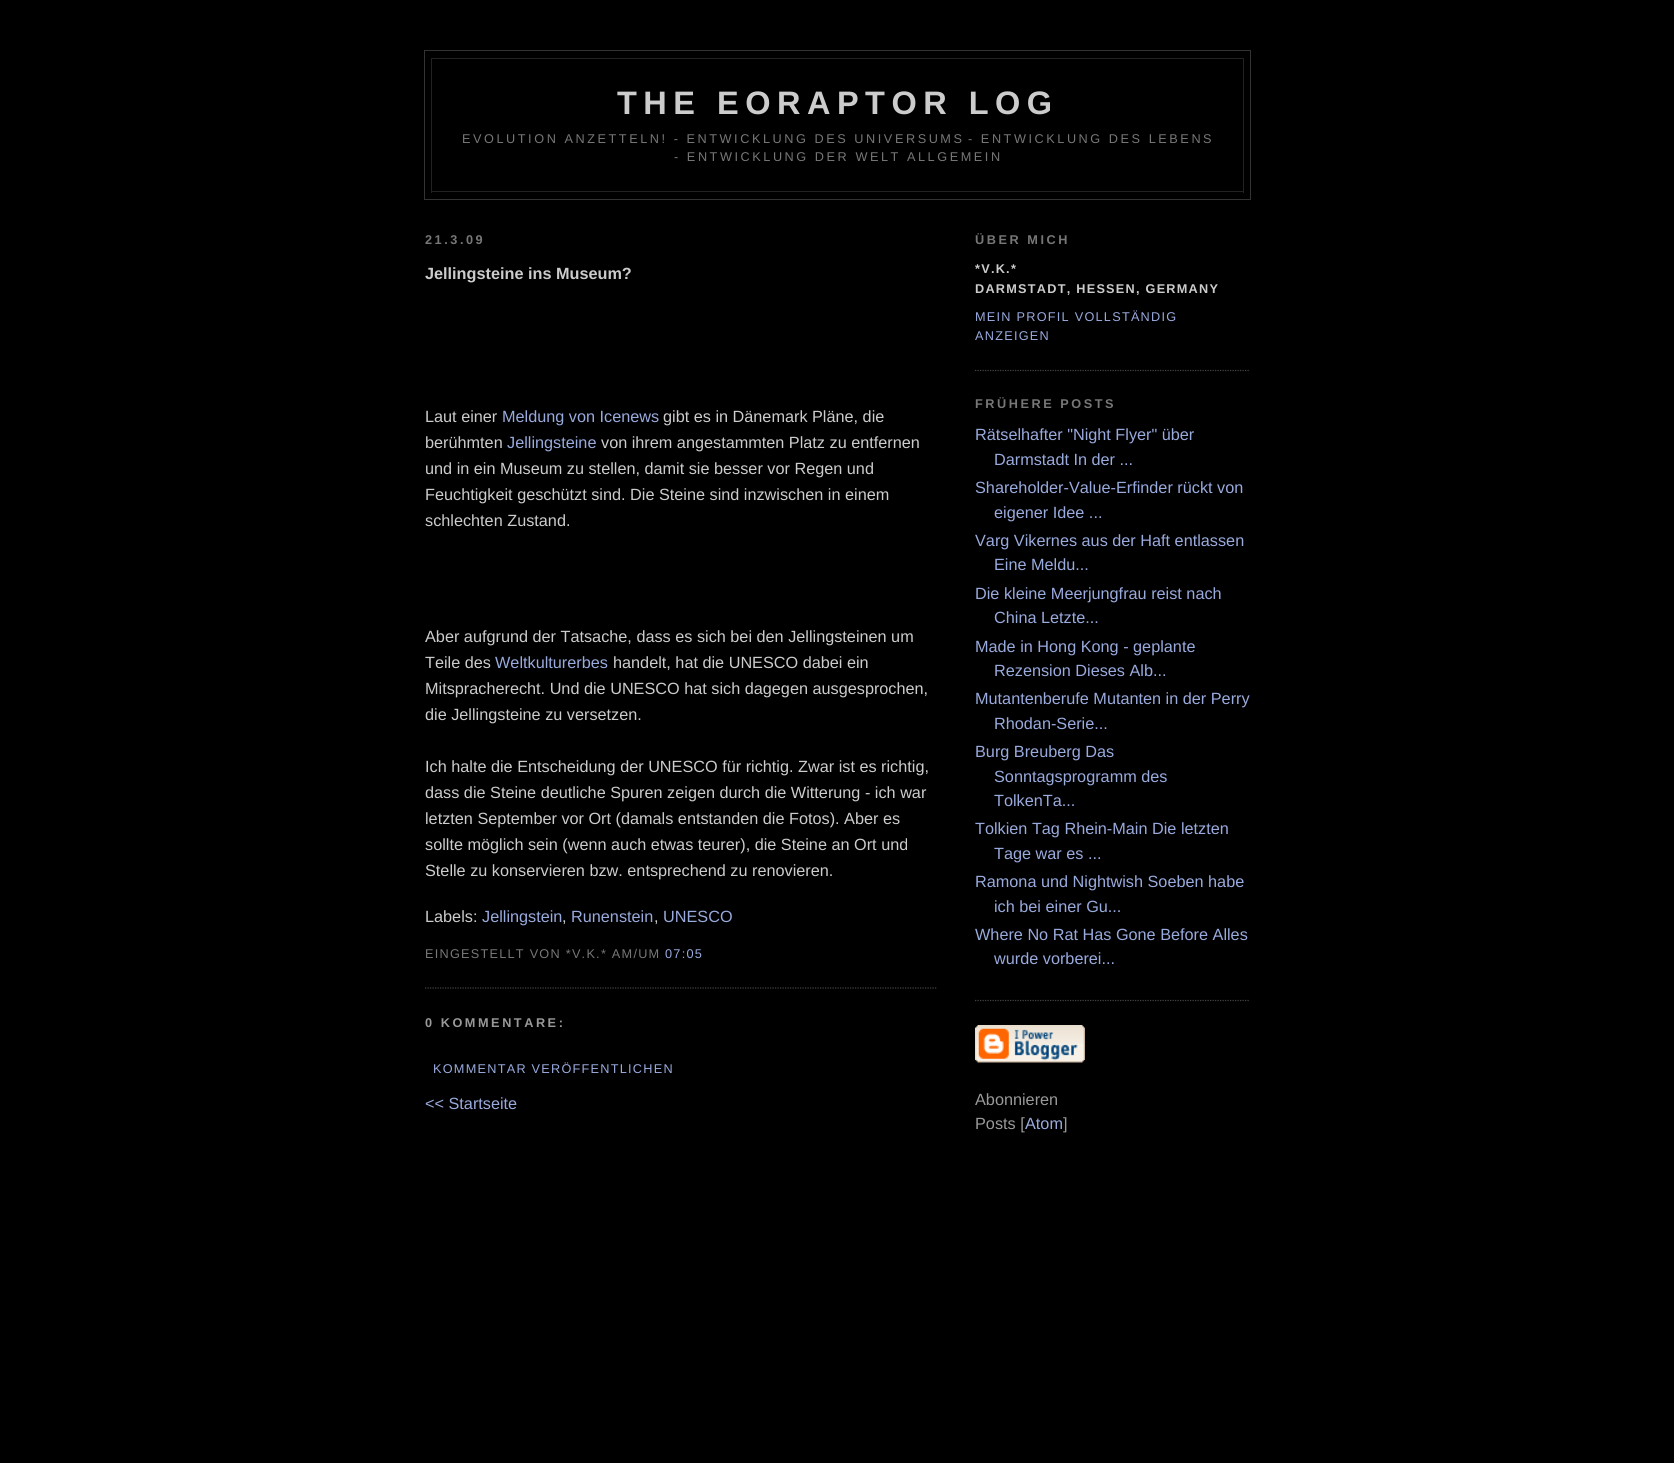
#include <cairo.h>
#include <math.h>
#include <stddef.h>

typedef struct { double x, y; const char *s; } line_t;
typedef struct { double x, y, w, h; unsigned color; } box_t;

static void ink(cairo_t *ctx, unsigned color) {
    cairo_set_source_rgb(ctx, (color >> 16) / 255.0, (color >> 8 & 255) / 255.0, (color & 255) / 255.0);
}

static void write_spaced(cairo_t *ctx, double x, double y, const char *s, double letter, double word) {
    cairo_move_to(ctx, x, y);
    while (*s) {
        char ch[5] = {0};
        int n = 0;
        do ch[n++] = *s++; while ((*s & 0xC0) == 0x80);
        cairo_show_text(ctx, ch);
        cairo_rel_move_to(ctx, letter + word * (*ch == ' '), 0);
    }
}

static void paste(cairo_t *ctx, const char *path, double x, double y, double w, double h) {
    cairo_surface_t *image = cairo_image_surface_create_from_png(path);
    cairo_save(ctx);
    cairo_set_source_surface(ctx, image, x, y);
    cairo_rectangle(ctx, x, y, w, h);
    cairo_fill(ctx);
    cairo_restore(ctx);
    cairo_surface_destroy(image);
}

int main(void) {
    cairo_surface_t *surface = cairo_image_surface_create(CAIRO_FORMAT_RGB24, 1674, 1463);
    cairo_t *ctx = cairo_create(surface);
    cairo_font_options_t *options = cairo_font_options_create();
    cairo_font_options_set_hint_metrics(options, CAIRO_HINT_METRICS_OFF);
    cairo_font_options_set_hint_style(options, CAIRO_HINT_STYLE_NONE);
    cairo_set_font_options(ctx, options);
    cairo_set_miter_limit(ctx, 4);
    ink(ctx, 0x000000);
    cairo_paint(ctx);
    cairo_rectangle(ctx, 424.5, 50.5, 826, 149);
    ink(ctx, 0x333333);
    cairo_set_line_width(ctx, 1);
    cairo_stroke(ctx);
    {
        static const box_t items[] = {
            {431, 58, 813, 1, 0x222222},
            {1243, 58, 1, 135, 0x222222},
            {431, 58, 1, 73, 0x222222},
        };
        for (size_t i = 0; i < sizeof items / sizeof *items; i++) {
            ink(ctx, items[i].color);
            cairo_rectangle(ctx, items[i].x, items[i].y, items[i].w, items[i].h);
            cairo_fill(ctx);
        }
    }
    cairo_select_font_face(ctx, "Liberation Sans", CAIRO_FONT_SLANT_NORMAL, CAIRO_FONT_WEIGHT_BOLD);
    cairo_set_font_size(ctx, 32.5);
    ink(ctx, 0xCCCCCC);
    write_spaced(ctx, 617, 114, "THE EORAPTOR LOG", 6.5, 0);
    ink(ctx, 0x222222);
    cairo_rectangle(ctx, 431, 191, 813, 1);
    cairo_fill(ctx);
    cairo_rectangle(ctx, 431, 131, 1, 62);
    cairo_fill(ctx);
    cairo_select_font_face(ctx, "Liberation Sans", CAIRO_FONT_SLANT_NORMAL, CAIRO_FONT_WEIGHT_NORMAL);
    cairo_set_font_size(ctx, 12.7);
    ink(ctx, 0x777777);
    {
        static const line_t items[] = {
            {462, 143, "EVOLUTION ANZETTELN! - ENTWICKLUNG DES UNIVERSUMS"},
            {968, 143, "- ENTWICKLUNG DES LEBENS"},
            {674, 161, "- ENTWICKLUNG DER WELT ALLGEMEIN"},
        };
        for (size_t i = 0; i < sizeof items / sizeof *items; i++) {
            write_spaced(ctx, items[i].x, items[i].y, items[i].s, 2.55, 0);
        }
    }
    cairo_select_font_face(ctx, "Liberation Sans", CAIRO_FONT_SLANT_NORMAL, CAIRO_FONT_WEIGHT_BOLD);
    write_spaced(ctx, 425, 244, "21.3.09", 2.55, 0);
    cairo_new_path(ctx);
    cairo_move_to(ctx, 425, 988);
    cairo_line_to(ctx, 937.5, 988);
    ink(ctx, 0x444444);
    cairo_set_line_width(ctx, 1.2);
    cairo_set_dash(ctx, (double[]){1.25, 1.25}, 2, 0);
    cairo_stroke(ctx);
    cairo_set_font_size(ctx, 16.25);
    ink(ctx, 0xCCCCCC);
    cairo_move_to(ctx, 425, 279);
    cairo_show_text(ctx, "Jellingsteine ins Museum?");
    cairo_select_font_face(ctx, "Liberation Sans", CAIRO_FONT_SLANT_NORMAL, CAIRO_FONT_WEIGHT_NORMAL);
    cairo_move_to(ctx, 425, 422);
    cairo_show_text(ctx, "Laut einer");
    ink(ctx, 0x99AADD);
    cairo_move_to(ctx, 502, 422);
    cairo_show_text(ctx, "Meldung von Icenews");
    ink(ctx, 0xCCCCCC);
    cairo_move_to(ctx, 663, 422);
    cairo_show_text(ctx, "gibt es in Dänemark Pläne, die");
    cairo_move_to(ctx, 425, 448);
    cairo_show_text(ctx, "berühmten");
    ink(ctx, 0x99AADD);
    cairo_move_to(ctx, 507, 448);
    cairo_show_text(ctx, "Jellingsteine");
    ink(ctx, 0xCCCCCC);
    {
        static const line_t items[] = {
            {601, 448, "von ihrem angestammten Platz zu entfernen"},
            {425, 474, "und in ein Museum zu stellen, damit sie besser vor Regen und"},
            {425, 500, "Feuchtigkeit geschützt sind. Die Steine sind inzwischen in einem"},
            {425, 526, "schlechten Zustand."},
            {425, 642, "Aber aufgrund der Tatsache, dass es sich bei den Jellingsteinen um"},
            {425, 668, "Teile des"},
        };
        for (size_t i = 0; i < sizeof items / sizeof *items; i++) {
            cairo_move_to(ctx, items[i].x, items[i].y);
            cairo_show_text(ctx, items[i].s);
        }
    }
    ink(ctx, 0x99AADD);
    cairo_move_to(ctx, 495, 668);
    cairo_show_text(ctx, "Weltkulturerbes");
    ink(ctx, 0xCCCCCC);
    {
        static const line_t items[] = {
            {613, 668, "handelt, hat die UNESCO dabei ein"},
            {425, 694, "Mitspracherecht. Und die UNESCO hat sich dagegen ausgesprochen,"},
            {425, 720, "die Jellingsteine zu versetzen."},
            {425, 772, "Ich halte die Entscheidung der UNESCO für richtig. Zwar ist es richtig,"},
            {425, 798, "dass die Steine deutliche Spuren zeigen durch die Witterung - ich war"},
            {425, 824, "letzten September vor Ort (damals entstanden die Fotos). Aber es"},
            {425, 850, "sollte möglich sein (wenn auch etwas teurer), die Steine an Ort und"},
            {425, 876, "Stelle zu konservieren bzw. entsprechend zu renovieren."},
            {425, 922, "Labels:"},
        };
        for (size_t i = 0; i < sizeof items / sizeof *items; i++) {
            cairo_move_to(ctx, items[i].x, items[i].y);
            cairo_show_text(ctx, items[i].s);
        }
    }
    ink(ctx, 0x99AADD);
    cairo_move_to(ctx, 482, 922);
    cairo_show_text(ctx, "Jellingstein");
    ink(ctx, 0xCCCCCC);
    cairo_move_to(ctx, 562, 922);
    cairo_show_text(ctx, ",");
    ink(ctx, 0x99AADD);
    cairo_move_to(ctx, 571, 922);
    cairo_show_text(ctx, "Runenstein");
    ink(ctx, 0xCCCCCC);
    cairo_move_to(ctx, 654, 922);
    cairo_show_text(ctx, ",");
    ink(ctx, 0x99AADD);
    cairo_move_to(ctx, 663, 922);
    cairo_show_text(ctx, "UNESCO");
    cairo_set_font_size(ctx, 12.7);
    ink(ctx, 0x777777);
    write_spaced(ctx, 425, 958, "EINGESTELLT VON *V.K.* AM/UM", 1.25, 0);
    ink(ctx, 0x99AADD);
    write_spaced(ctx, 665, 958, "07:05", 1.25, 0);
    cairo_select_font_face(ctx, "Liberation Sans", CAIRO_FONT_SLANT_NORMAL, CAIRO_FONT_WEIGHT_BOLD);
    ink(ctx, 0x999999);
    write_spaced(ctx, 425, 1027, "0 KOMMENTARE:", 2.55, 0);
    cairo_select_font_face(ctx, "Liberation Sans", CAIRO_FONT_SLANT_NORMAL, CAIRO_FONT_WEIGHT_NORMAL);
    ink(ctx, 0x99AADD);
    write_spaced(ctx, 433, 1073, "KOMMENTAR VERÖFFENTLICHEN", 1.25, 0);
    cairo_set_font_size(ctx, 16.25);
    cairo_move_to(ctx, 425, 1109);
    cairo_show_text(ctx, "<< Startseite");
    cairo_new_path(ctx);
    cairo_move_to(ctx, 975, 370.5);
    cairo_line_to(ctx, 1250, 370.5);
    ink(ctx, 0x444444);
    cairo_stroke(ctx);
    cairo_select_font_face(ctx, "Liberation Sans", CAIRO_FONT_SLANT_NORMAL, CAIRO_FONT_WEIGHT_BOLD);
    cairo_set_font_size(ctx, 12.7);
    ink(ctx, 0x777777);
    write_spaced(ctx, 975, 244, "ÜBER MICH", 2.55, 0);
    ink(ctx, 0xCCCCCC);
    write_spaced(ctx, 975, 273, "*V.K.*", 1.25, 0);
    write_spaced(ctx, 975, 293, "DARMSTADT, HESSEN, GERMANY", 1.25, 0);
    cairo_select_font_face(ctx, "Liberation Sans", CAIRO_FONT_SLANT_NORMAL, CAIRO_FONT_WEIGHT_NORMAL);
    ink(ctx, 0x99AADD);
    write_spaced(ctx, 975, 321, "MEIN PROFIL VOLLSTÄNDIG", 1.25, 0);
    write_spaced(ctx, 975, 340, "ANZEIGEN", 1.25, 0);
    cairo_select_font_face(ctx, "Liberation Sans", CAIRO_FONT_SLANT_NORMAL, CAIRO_FONT_WEIGHT_BOLD);
    ink(ctx, 0x777777);
    write_spaced(ctx, 975, 408, "FRÜHERE POSTS", 2.55, 0);
    cairo_new_path(ctx);
    cairo_move_to(ctx, 975, 1000.5);
    cairo_line_to(ctx, 1250, 1000.5);
    ink(ctx, 0x444444);
    cairo_stroke(ctx);
    cairo_select_font_face(ctx, "Liberation Sans", CAIRO_FONT_SLANT_NORMAL, CAIRO_FONT_WEIGHT_NORMAL);
    cairo_set_font_size(ctx, 16.25);
    ink(ctx, 0x99AADD);
    {
        static const line_t items[] = {
            {975, 440, "Rätselhafter \"Night Flyer\" über"},
            {994, 465, "Darmstadt In der ..."},
            {975, 493, "Shareholder-Value-Erfinder rückt von"},
            {994, 518, "eigener Idee ..."},
            {975, 546, "Varg Vikernes aus der Haft entlassen"},
            {994, 570, "Eine Meldu..."},
            {975, 599, "Die kleine Meerjungfrau reist nach"},
            {994, 623, "China Letzte..."},
            {975, 652, "Made in Hong Kong - geplante"},
            {994, 676, "Rezension Dieses Alb..."},
            {975, 704, "Mutantenberufe Mutanten in der Perry"},
            {994, 729, "Rhodan-Serie..."},
            {975, 757, "Burg Breuberg Das"},
            {994, 782, "Sonntagsprogramm des"},
            {994, 806, "TolkenTa..."},
            {975, 834, "Tolkien Tag Rhein-Main Die letzten"},
            {994, 859, "Tage war es ..."},
            {975, 887, "Ramona und Nightwish Soeben habe"},
            {994, 912, "ich bei einer Gu..."},
            {975, 940, "Where No Rat Has Gone Before Alles"},
            {994, 964, "wurde vorberei..."},
        };
        for (size_t i = 0; i < sizeof items / sizeof *items; i++) {
            cairo_move_to(ctx, items[i].x, items[i].y);
            cairo_show_text(ctx, items[i].s);
        }
    }
    paste(ctx, "media/1.png", 975, 1025, 110, 38);
    ink(ctx, 0x999999);
    cairo_move_to(ctx, 975, 1105);
    cairo_show_text(ctx, "Abonnieren");
    cairo_move_to(ctx, 975, 1129);
    cairo_show_text(ctx, "Posts [");
    ink(ctx, 0x99AADD);
    cairo_move_to(ctx, 1025, 1129);
    cairo_show_text(ctx, "Atom");
    ink(ctx, 0x999999);
    cairo_move_to(ctx, 1063, 1129);
    cairo_show_text(ctx, "]");
    cairo_surface_write_to_png(surface, "image.png");
    cairo_font_options_destroy(options);
    cairo_destroy(ctx);
    cairo_surface_destroy(surface);
    return 0;
}
